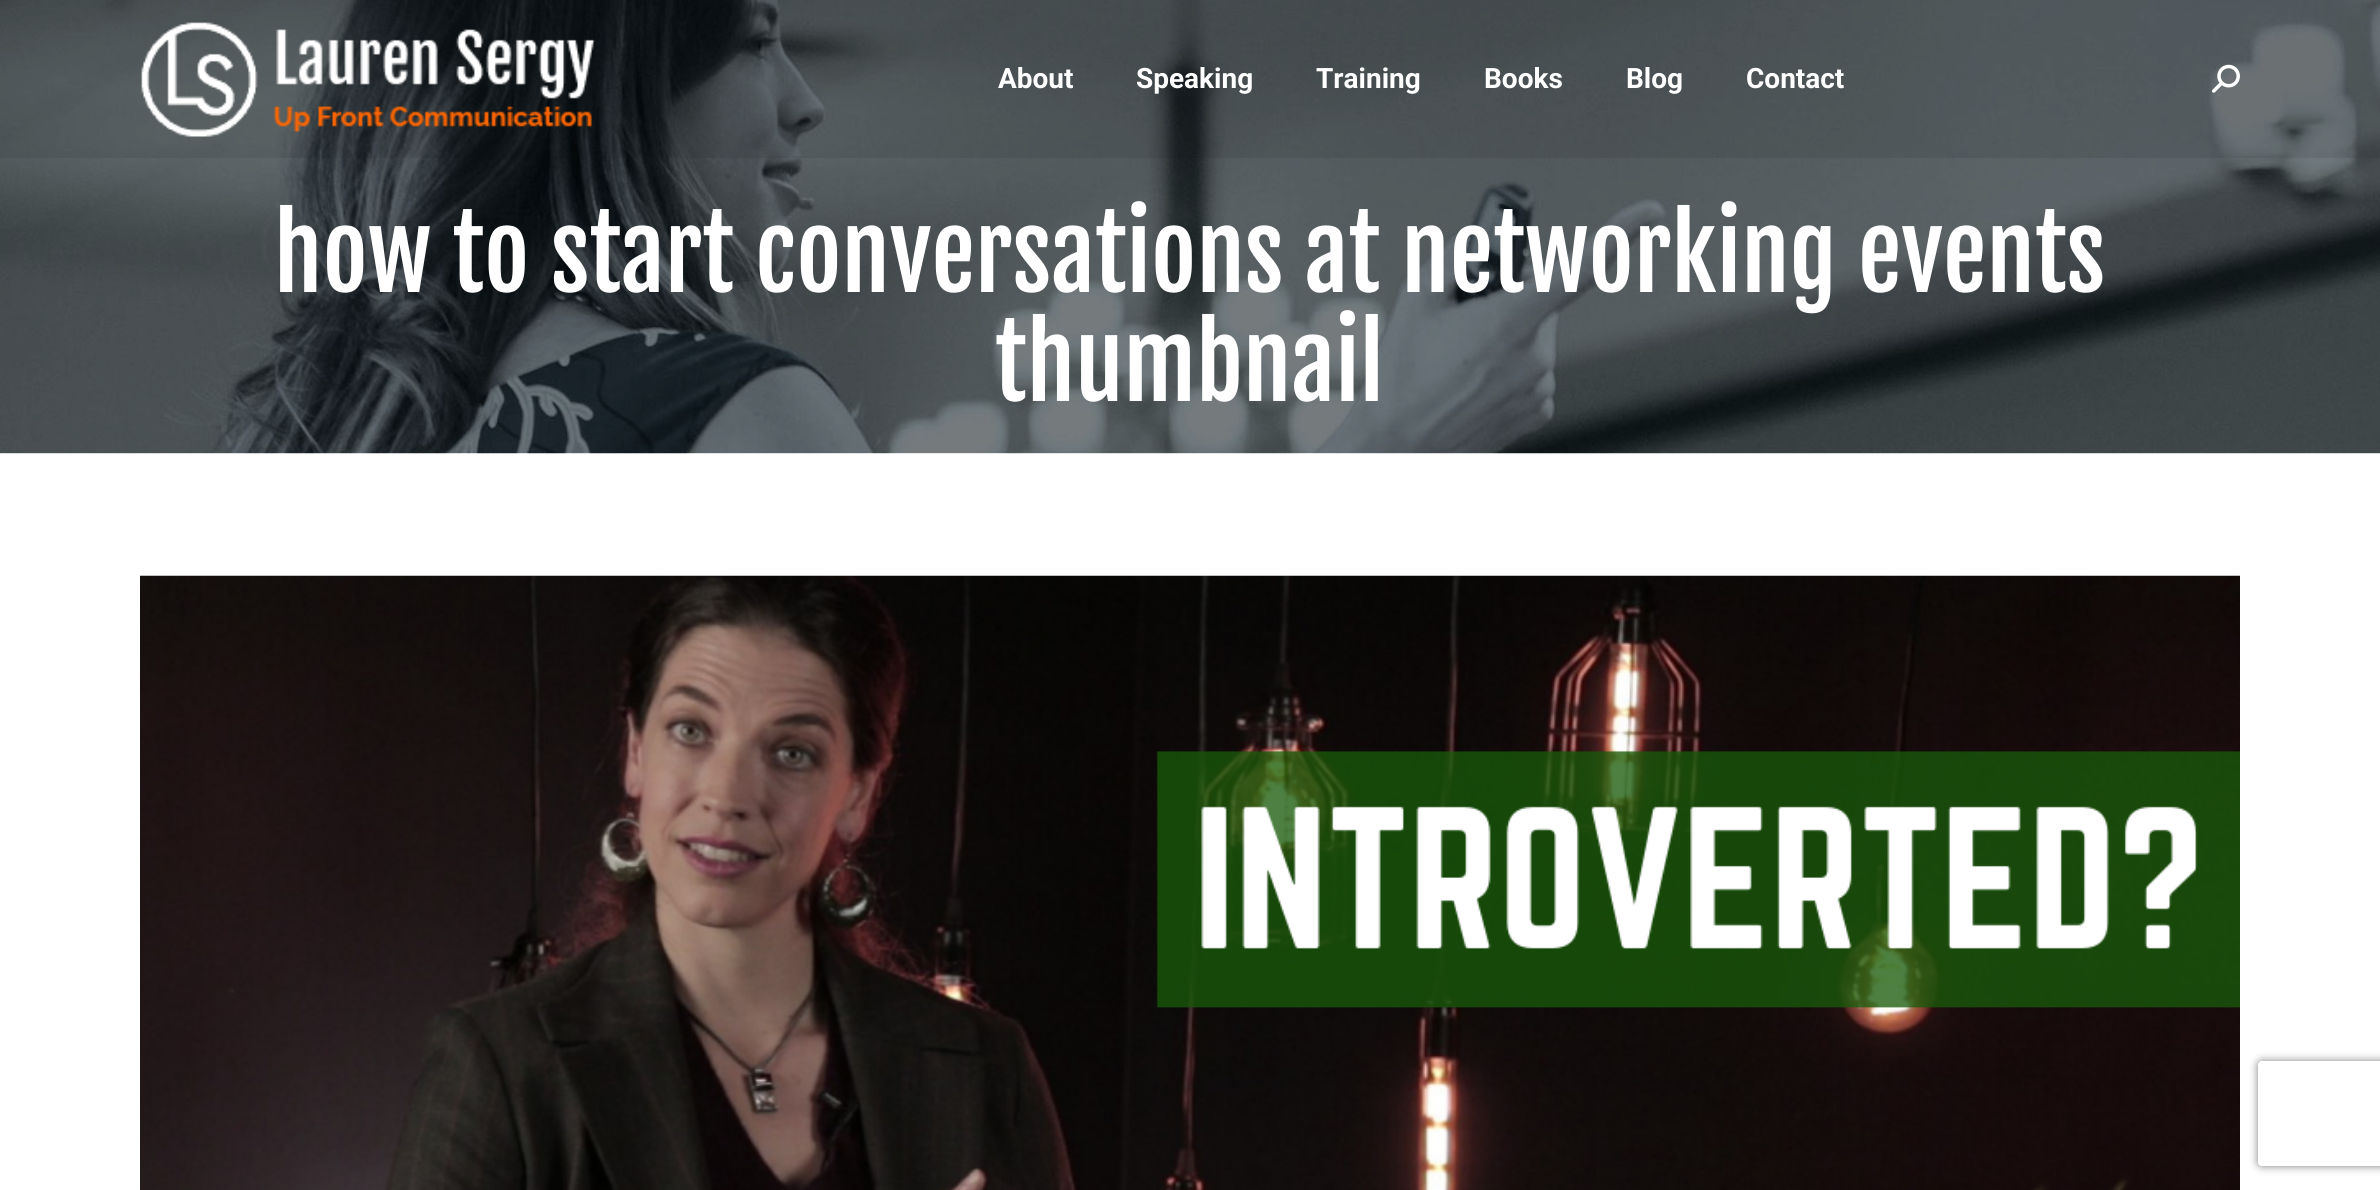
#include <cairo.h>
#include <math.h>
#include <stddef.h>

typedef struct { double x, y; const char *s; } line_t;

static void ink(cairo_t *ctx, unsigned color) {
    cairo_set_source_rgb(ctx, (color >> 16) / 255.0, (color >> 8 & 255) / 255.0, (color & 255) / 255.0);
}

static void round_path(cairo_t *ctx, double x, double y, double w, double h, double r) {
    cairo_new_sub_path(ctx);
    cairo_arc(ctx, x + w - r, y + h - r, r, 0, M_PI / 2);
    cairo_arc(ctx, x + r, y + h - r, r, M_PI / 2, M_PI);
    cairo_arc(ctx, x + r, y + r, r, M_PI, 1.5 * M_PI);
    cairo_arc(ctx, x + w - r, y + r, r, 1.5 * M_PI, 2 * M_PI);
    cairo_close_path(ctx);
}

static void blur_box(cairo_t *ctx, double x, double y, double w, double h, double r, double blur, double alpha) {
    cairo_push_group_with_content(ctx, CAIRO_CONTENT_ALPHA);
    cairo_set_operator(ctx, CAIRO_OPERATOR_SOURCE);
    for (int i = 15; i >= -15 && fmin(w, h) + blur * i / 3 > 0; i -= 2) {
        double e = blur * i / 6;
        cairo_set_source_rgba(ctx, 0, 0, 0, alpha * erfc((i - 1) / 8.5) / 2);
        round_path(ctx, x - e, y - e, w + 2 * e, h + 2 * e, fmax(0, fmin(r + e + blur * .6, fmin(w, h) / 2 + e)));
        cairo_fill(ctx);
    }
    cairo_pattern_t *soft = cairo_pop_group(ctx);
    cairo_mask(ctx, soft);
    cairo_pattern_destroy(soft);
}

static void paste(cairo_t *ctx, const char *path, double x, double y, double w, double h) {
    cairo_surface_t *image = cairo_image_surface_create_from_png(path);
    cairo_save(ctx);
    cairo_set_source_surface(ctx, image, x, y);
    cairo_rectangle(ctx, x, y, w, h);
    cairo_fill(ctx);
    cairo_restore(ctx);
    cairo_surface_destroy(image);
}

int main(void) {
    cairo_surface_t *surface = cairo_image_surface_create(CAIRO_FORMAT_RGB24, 2380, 1190);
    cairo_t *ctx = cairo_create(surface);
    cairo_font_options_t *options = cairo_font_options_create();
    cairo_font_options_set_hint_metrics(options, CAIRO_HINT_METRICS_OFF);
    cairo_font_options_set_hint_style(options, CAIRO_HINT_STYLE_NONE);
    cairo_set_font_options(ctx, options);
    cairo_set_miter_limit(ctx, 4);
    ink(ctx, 0xFFFFFF);
    cairo_paint(ctx);
    paste(ctx, "media/3.png", 0, 0, 2380, 454);
    cairo_set_source_rgba(ctx, 0.067, 0.067, 0.067, 0.09);
    cairo_rectangle(ctx, 0, 0, 2380, 158);
    cairo_fill(ctx);
    paste(ctx, "media/1.png", 141, 22, 455, 115);
    cairo_select_font_face(ctx, "Roboto", CAIRO_FONT_SLANT_NORMAL, CAIRO_FONT_WEIGHT_BOLD);
    cairo_set_font_size(ctx, 28);
    ink(ctx, 0xFFFFFF);
    {
        static const line_t items[] = {
            {998, 88, "About"},
            {1136, 88, "Speaking"},
            {1316, 88, "Training"},
            {1484, 88, "Books"},
            {1626, 88, "Blog"},
            {1746, 88, "Contact"},
        };
        for (size_t i = 0; i < sizeof items / sizeof *items; i++) {
            cairo_move_to(ctx, items[i].x, items[i].y);
            cairo_show_text(ctx, items[i].s);
        }
    }
    paste(ctx, "media/2.png", 2212, 64, 28, 29);
    cairo_select_font_face(ctx, "Fjalla One", CAIRO_FONT_SLANT_NORMAL, CAIRO_FONT_WEIGHT_NORMAL);
    cairo_set_font_size(ctx, 98);
    cairo_move_to(ctx, 274, 292);
    cairo_show_text(ctx, "how to start conversations at networking events");
    cairo_move_to(ctx, 995, 401);
    cairo_show_text(ctx, "thumbnail");
    paste(ctx, "media/4.png", 140, 575, 2100, 615);
    cairo_save(ctx);
    cairo_set_fill_rule(ctx, CAIRO_FILL_RULE_EVEN_ODD);
    cairo_new_path(ctx);
    cairo_move_to(ctx, 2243, 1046);
    cairo_line_to(ctx, 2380, 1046);
    cairo_line_to(ctx, 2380, 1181);
    cairo_line_to(ctx, 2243, 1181);
    cairo_close_path(ctx);
    cairo_move_to(ctx, 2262, 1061);
    cairo_line_to(ctx, 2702, 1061);
    cairo_curve_to(ctx, 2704, 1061, 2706, 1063, 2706, 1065);
    cairo_line_to(ctx, 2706, 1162);
    cairo_curve_to(ctx, 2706, 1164, 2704, 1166, 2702, 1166);
    cairo_line_to(ctx, 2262, 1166);
    cairo_curve_to(ctx, 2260, 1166, 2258, 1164, 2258, 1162);
    cairo_line_to(ctx, 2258, 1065);
    cairo_curve_to(ctx, 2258, 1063, 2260, 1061, 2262, 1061);
    cairo_close_path(ctx);
    cairo_clip(ctx);
    ink(ctx, 0x808080);
    blur_box(ctx, 2258, 1061, 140, 105, 4, 4.5, 1);
    cairo_restore(ctx);
    cairo_surface_write_to_png(surface, "image.png");
    cairo_font_options_destroy(options);
    cairo_destroy(ctx);
    cairo_surface_destroy(surface);
    return 0;
}
